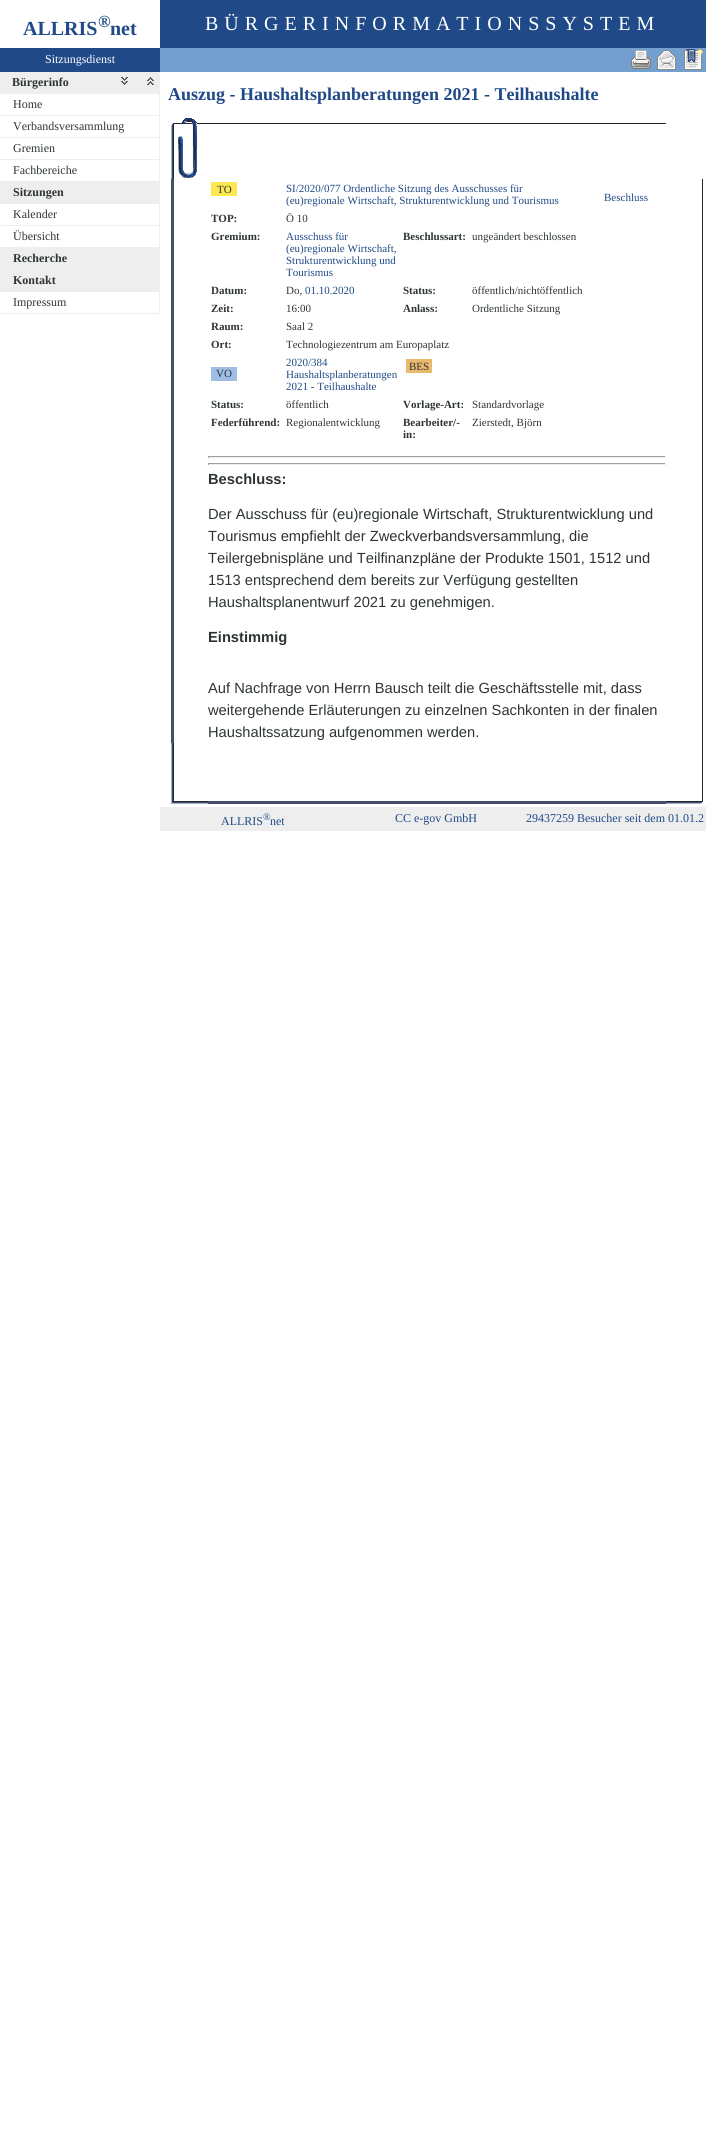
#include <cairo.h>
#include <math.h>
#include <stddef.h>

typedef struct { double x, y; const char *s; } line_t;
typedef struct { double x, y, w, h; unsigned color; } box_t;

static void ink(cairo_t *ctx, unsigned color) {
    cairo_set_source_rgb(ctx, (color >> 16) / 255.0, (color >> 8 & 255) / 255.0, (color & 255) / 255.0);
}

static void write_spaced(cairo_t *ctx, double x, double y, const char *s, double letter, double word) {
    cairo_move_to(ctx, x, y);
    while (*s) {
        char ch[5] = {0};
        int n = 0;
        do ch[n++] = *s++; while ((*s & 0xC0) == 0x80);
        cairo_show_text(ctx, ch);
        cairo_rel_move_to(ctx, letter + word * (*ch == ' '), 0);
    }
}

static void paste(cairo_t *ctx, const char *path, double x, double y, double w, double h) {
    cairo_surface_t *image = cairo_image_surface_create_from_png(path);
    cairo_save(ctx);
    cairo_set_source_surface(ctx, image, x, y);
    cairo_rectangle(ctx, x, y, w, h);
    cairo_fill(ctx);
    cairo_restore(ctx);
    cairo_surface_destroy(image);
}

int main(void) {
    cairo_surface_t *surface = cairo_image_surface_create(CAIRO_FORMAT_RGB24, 706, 2155);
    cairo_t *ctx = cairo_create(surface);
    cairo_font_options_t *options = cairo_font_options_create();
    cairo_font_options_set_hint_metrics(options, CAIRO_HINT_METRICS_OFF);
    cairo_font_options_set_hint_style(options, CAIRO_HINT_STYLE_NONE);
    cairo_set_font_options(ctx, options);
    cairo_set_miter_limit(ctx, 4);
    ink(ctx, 0xFFFFFF);
    cairo_paint(ctx);
    ink(ctx, 0xEEEEEE);
    cairo_rectangle(ctx, 0, 72, 160, 242);
    cairo_fill(ctx);
    cairo_select_font_face(ctx, "Liberation Serif", CAIRO_FONT_SLANT_NORMAL, CAIRO_FONT_WEIGHT_BOLD);
    cairo_set_font_size(ctx, 20);
    ink(ctx, 0x204A87);
    cairo_move_to(ctx, 23, 35);
    cairo_show_text(ctx, "ALLRIS");
    cairo_set_font_size(ctx, 17);
    cairo_move_to(ctx, 98, 27);
    cairo_show_text(ctx, "®");
    cairo_set_font_size(ctx, 20);
    cairo_move_to(ctx, 110, 35);
    cairo_show_text(ctx, "net");
    cairo_rectangle(ctx, 0, 48, 160, 24);
    cairo_fill(ctx);
    cairo_select_font_face(ctx, "Liberation Serif", CAIRO_FONT_SLANT_NORMAL, CAIRO_FONT_WEIGHT_NORMAL);
    cairo_set_font_size(ctx, 12);
    ink(ctx, 0xFFFFFF);
    cairo_move_to(ctx, 45, 63);
    cairo_show_text(ctx, "Sitzungsdienst");
    cairo_select_font_face(ctx, "Liberation Serif", CAIRO_FONT_SLANT_NORMAL, CAIRO_FONT_WEIGHT_BOLD);
    ink(ctx, 0x2E3436);
    cairo_move_to(ctx, 12, 86);
    cairo_show_text(ctx, "Bürgerinfo");
    paste(ctx, "media/1.png", 121, 77, 7, 8);
    paste(ctx, "media/2.png", 147, 77, 7, 8);
    ink(ctx, 0xFFFFFF);
    cairo_rectangle(ctx, 0, 94, 159, 21);
    cairo_fill(ctx);
    cairo_select_font_face(ctx, "Liberation Serif", CAIRO_FONT_SLANT_NORMAL, CAIRO_FONT_WEIGHT_NORMAL);
    ink(ctx, 0x2E3436);
    cairo_move_to(ctx, 13, 108);
    cairo_show_text(ctx, "Home");
    ink(ctx, 0xFFFFFF);
    cairo_rectangle(ctx, 0, 116, 159, 21);
    cairo_fill(ctx);
    ink(ctx, 0x2E3436);
    cairo_move_to(ctx, 13, 130);
    cairo_show_text(ctx, "Verbandsversammlung");
    ink(ctx, 0xFFFFFF);
    cairo_rectangle(ctx, 0, 138, 159, 21);
    cairo_fill(ctx);
    ink(ctx, 0x2E3436);
    cairo_move_to(ctx, 13, 152);
    cairo_show_text(ctx, "Gremien");
    ink(ctx, 0xFFFFFF);
    cairo_rectangle(ctx, 0, 160, 159, 21);
    cairo_fill(ctx);
    ink(ctx, 0x2E3436);
    cairo_move_to(ctx, 13, 174);
    cairo_show_text(ctx, "Fachbereiche");
    cairo_select_font_face(ctx, "Liberation Serif", CAIRO_FONT_SLANT_NORMAL, CAIRO_FONT_WEIGHT_BOLD);
    cairo_move_to(ctx, 13, 196);
    cairo_show_text(ctx, "Sitzungen");
    ink(ctx, 0xFFFFFF);
    cairo_rectangle(ctx, 0, 204, 159, 21);
    cairo_fill(ctx);
    cairo_select_font_face(ctx, "Liberation Serif", CAIRO_FONT_SLANT_NORMAL, CAIRO_FONT_WEIGHT_NORMAL);
    ink(ctx, 0x2E3436);
    cairo_move_to(ctx, 13, 218);
    cairo_show_text(ctx, "Kalender");
    ink(ctx, 0xFFFFFF);
    cairo_rectangle(ctx, 0, 226, 159, 21);
    cairo_fill(ctx);
    ink(ctx, 0x2E3436);
    cairo_move_to(ctx, 13, 240);
    cairo_show_text(ctx, "Übersicht");
    cairo_select_font_face(ctx, "Liberation Serif", CAIRO_FONT_SLANT_NORMAL, CAIRO_FONT_WEIGHT_BOLD);
    cairo_move_to(ctx, 13, 262);
    cairo_show_text(ctx, "Recherche");
    cairo_move_to(ctx, 13, 284);
    cairo_show_text(ctx, "Kontakt");
    ink(ctx, 0xFFFFFF);
    cairo_rectangle(ctx, 0, 292, 159, 21);
    cairo_fill(ctx);
    cairo_select_font_face(ctx, "Liberation Serif", CAIRO_FONT_SLANT_NORMAL, CAIRO_FONT_WEIGHT_NORMAL);
    ink(ctx, 0x2E3436);
    cairo_move_to(ctx, 13, 306);
    cairo_show_text(ctx, "Impressum");
    ink(ctx, 0x204A87);
    cairo_rectangle(ctx, 160, 0, 546, 48);
    cairo_fill(ctx);
    cairo_set_font_size(ctx, 20);
    ink(ctx, 0xFFFFFF);
    write_spaced(ctx, 205, 30, "BÜRGERINFORMATIONSSYSTEM", 6, 0);
    ink(ctx, 0x729FCF);
    cairo_rectangle(ctx, 160, 48, 546, 24);
    cairo_fill(ctx);
    paste(ctx, "media/3.png", 631, 50, 20, 19);
    paste(ctx, "media/4.png", 657, 50, 19, 20);
    paste(ctx, "media/5.png", 684, 49, 19, 21);
    cairo_select_font_face(ctx, "Liberation Serif", CAIRO_FONT_SLANT_NORMAL, CAIRO_FONT_WEIGHT_BOLD);
    cairo_set_font_size(ctx, 18);
    ink(ctx, 0x204A87);
    cairo_move_to(ctx, 168, 100);
    cairo_show_text(ctx, "Auszug - Haushaltsplanberatungen 2021 - Teilhaushalte");
    paste(ctx, "media/6.png", 171, 118, 37, 61);
    {
        static const box_t items[] = {
            {208, 123, 458, 1, 0x222734},
            {171, 179, 3, 564, 0x454F69},
            {211, 182, 26, 14, 0xFCE94F},
        };
        for (size_t i = 0; i < sizeof items / sizeof *items; i++) {
            ink(ctx, items[i].color);
            cairo_rectangle(ctx, items[i].x, items[i].y, items[i].w, items[i].h);
            cairo_fill(ctx);
        }
    }
    cairo_select_font_face(ctx, "Liberation Serif", CAIRO_FONT_SLANT_NORMAL, CAIRO_FONT_WEIGHT_NORMAL);
    cairo_set_font_size(ctx, 11);
    ink(ctx, 0x2E3436);
    cairo_move_to(ctx, 217, 193);
    cairo_show_text(ctx, "TO");
    ink(ctx, 0x204A87);
    cairo_move_to(ctx, 286, 192);
    cairo_show_text(ctx, "SI/2020/077 Ordentliche Sitzung des Ausschusses für");
    cairo_move_to(ctx, 286, 204);
    cairo_show_text(ctx, "(eu)regionale Wirtschaft, Strukturentwicklung und Tourismus");
    cairo_select_font_face(ctx, "Liberation Serif", CAIRO_FONT_SLANT_NORMAL, CAIRO_FONT_WEIGHT_BOLD);
    ink(ctx, 0x2E3436);
    cairo_move_to(ctx, 211, 222);
    cairo_show_text(ctx, "TOP:");
    cairo_select_font_face(ctx, "Liberation Serif", CAIRO_FONT_SLANT_NORMAL, CAIRO_FONT_WEIGHT_NORMAL);
    cairo_move_to(ctx, 286, 222);
    cairo_show_text(ctx, "Ö 10");
    cairo_select_font_face(ctx, "Liberation Serif", CAIRO_FONT_SLANT_NORMAL, CAIRO_FONT_WEIGHT_BOLD);
    cairo_move_to(ctx, 211, 240);
    cairo_show_text(ctx, "Gremium:");
    cairo_select_font_face(ctx, "Liberation Serif", CAIRO_FONT_SLANT_NORMAL, CAIRO_FONT_WEIGHT_NORMAL);
    ink(ctx, 0x204A87);
    {
        static const line_t items[] = {
            {286, 240, "Ausschuss für"},
            {286, 252, "(eu)regionale Wirtschaft,"},
            {286, 264, "Strukturentwicklung und"},
            {286, 276, "Tourismus"},
        };
        for (size_t i = 0; i < sizeof items / sizeof *items; i++) {
            cairo_move_to(ctx, items[i].x, items[i].y);
            cairo_show_text(ctx, items[i].s);
        }
    }
    cairo_select_font_face(ctx, "Liberation Serif", CAIRO_FONT_SLANT_NORMAL, CAIRO_FONT_WEIGHT_BOLD);
    ink(ctx, 0x2E3436);
    cairo_move_to(ctx, 403, 240);
    cairo_show_text(ctx, "Beschlussart:");
    cairo_select_font_face(ctx, "Liberation Serif", CAIRO_FONT_SLANT_NORMAL, CAIRO_FONT_WEIGHT_NORMAL);
    cairo_move_to(ctx, 472, 240);
    cairo_show_text(ctx, "ungeändert beschlossen");
    cairo_select_font_face(ctx, "Liberation Serif", CAIRO_FONT_SLANT_NORMAL, CAIRO_FONT_WEIGHT_BOLD);
    cairo_move_to(ctx, 211, 294);
    cairo_show_text(ctx, "Datum:");
    cairo_select_font_face(ctx, "Liberation Serif", CAIRO_FONT_SLANT_NORMAL, CAIRO_FONT_WEIGHT_NORMAL);
    cairo_move_to(ctx, 286, 294);
    cairo_show_text(ctx, "Do,");
    ink(ctx, 0x204A87);
    cairo_move_to(ctx, 305, 294);
    cairo_show_text(ctx, "01.10.2020");
    cairo_select_font_face(ctx, "Liberation Serif", CAIRO_FONT_SLANT_NORMAL, CAIRO_FONT_WEIGHT_BOLD);
    ink(ctx, 0x2E3436);
    cairo_move_to(ctx, 403, 294);
    cairo_show_text(ctx, "Status:");
    cairo_select_font_face(ctx, "Liberation Serif", CAIRO_FONT_SLANT_NORMAL, CAIRO_FONT_WEIGHT_NORMAL);
    cairo_move_to(ctx, 472, 294);
    cairo_show_text(ctx, "öffentlich/nichtöffentlich");
    cairo_select_font_face(ctx, "Liberation Serif", CAIRO_FONT_SLANT_NORMAL, CAIRO_FONT_WEIGHT_BOLD);
    cairo_move_to(ctx, 211, 312);
    cairo_show_text(ctx, "Zeit:");
    cairo_select_font_face(ctx, "Liberation Serif", CAIRO_FONT_SLANT_NORMAL, CAIRO_FONT_WEIGHT_NORMAL);
    cairo_move_to(ctx, 286, 312);
    cairo_show_text(ctx, "16:00");
    cairo_select_font_face(ctx, "Liberation Serif", CAIRO_FONT_SLANT_NORMAL, CAIRO_FONT_WEIGHT_BOLD);
    cairo_move_to(ctx, 403, 312);
    cairo_show_text(ctx, "Anlass:");
    cairo_select_font_face(ctx, "Liberation Serif", CAIRO_FONT_SLANT_NORMAL, CAIRO_FONT_WEIGHT_NORMAL);
    cairo_move_to(ctx, 472, 312);
    cairo_show_text(ctx, "Ordentliche Sitzung");
    cairo_select_font_face(ctx, "Liberation Serif", CAIRO_FONT_SLANT_NORMAL, CAIRO_FONT_WEIGHT_BOLD);
    cairo_move_to(ctx, 211, 330);
    cairo_show_text(ctx, "Raum:");
    cairo_select_font_face(ctx, "Liberation Serif", CAIRO_FONT_SLANT_NORMAL, CAIRO_FONT_WEIGHT_NORMAL);
    cairo_move_to(ctx, 286, 330);
    cairo_show_text(ctx, "Saal 2");
    cairo_select_font_face(ctx, "Liberation Serif", CAIRO_FONT_SLANT_NORMAL, CAIRO_FONT_WEIGHT_BOLD);
    cairo_move_to(ctx, 211, 348);
    cairo_show_text(ctx, "Ort:");
    cairo_select_font_face(ctx, "Liberation Serif", CAIRO_FONT_SLANT_NORMAL, CAIRO_FONT_WEIGHT_NORMAL);
    cairo_move_to(ctx, 286, 348);
    cairo_show_text(ctx, "Technologiezentrum am Europaplatz");
    ink(ctx, 0x204A87);
    {
        static const line_t items[] = {
            {286, 366, "2020/384"},
            {286, 378, "Haushaltsplanberatungen"},
            {286, 390, "2021 - Teilhaushalte"},
        };
        for (size_t i = 0; i < sizeof items / sizeof *items; i++) {
            cairo_move_to(ctx, items[i].x, items[i].y);
            cairo_show_text(ctx, items[i].s);
        }
    }
    ink(ctx, 0xE9B96E);
    cairo_rectangle(ctx, 406, 359, 26, 14);
    cairo_fill(ctx);
    ink(ctx, 0x2E3436);
    cairo_move_to(ctx, 409, 370);
    cairo_show_text(ctx, "BES");
    ink(ctx, 0xA0BDE4);
    cairo_rectangle(ctx, 211, 367, 26, 14);
    cairo_fill(ctx);
    ink(ctx, 0x2E3436);
    cairo_move_to(ctx, 216, 377);
    cairo_show_text(ctx, "VO");
    cairo_select_font_face(ctx, "Liberation Serif", CAIRO_FONT_SLANT_NORMAL, CAIRO_FONT_WEIGHT_BOLD);
    cairo_move_to(ctx, 211, 408);
    cairo_show_text(ctx, "Status:");
    cairo_select_font_face(ctx, "Liberation Serif", CAIRO_FONT_SLANT_NORMAL, CAIRO_FONT_WEIGHT_NORMAL);
    cairo_move_to(ctx, 286, 408);
    cairo_show_text(ctx, "öffentlich");
    cairo_select_font_face(ctx, "Liberation Serif", CAIRO_FONT_SLANT_NORMAL, CAIRO_FONT_WEIGHT_BOLD);
    cairo_move_to(ctx, 403, 408);
    cairo_show_text(ctx, "Vorlage-Art:");
    cairo_select_font_face(ctx, "Liberation Serif", CAIRO_FONT_SLANT_NORMAL, CAIRO_FONT_WEIGHT_NORMAL);
    cairo_move_to(ctx, 472, 408);
    cairo_show_text(ctx, "Standardvorlage");
    cairo_select_font_face(ctx, "Liberation Serif", CAIRO_FONT_SLANT_NORMAL, CAIRO_FONT_WEIGHT_BOLD);
    cairo_move_to(ctx, 211, 426);
    cairo_show_text(ctx, "Federführend:");
    cairo_select_font_face(ctx, "Liberation Serif", CAIRO_FONT_SLANT_NORMAL, CAIRO_FONT_WEIGHT_NORMAL);
    cairo_move_to(ctx, 286, 426);
    cairo_show_text(ctx, "Regionalentwicklung");
    cairo_select_font_face(ctx, "Liberation Serif", CAIRO_FONT_SLANT_NORMAL, CAIRO_FONT_WEIGHT_BOLD);
    cairo_move_to(ctx, 403, 426);
    cairo_show_text(ctx, "Bearbeiter/-");
    cairo_move_to(ctx, 403, 438);
    cairo_show_text(ctx, "in:");
    cairo_select_font_face(ctx, "Liberation Serif", CAIRO_FONT_SLANT_NORMAL, CAIRO_FONT_WEIGHT_NORMAL);
    cairo_move_to(ctx, 472, 426);
    cairo_show_text(ctx, "Zierstedt, Björn");
    ink(ctx, 0x204A87);
    cairo_move_to(ctx, 604, 201);
    cairo_show_text(ctx, "Beschluss");
    {
        static const box_t items[] = {
            {208, 456, 458, 1, 0x9F9F9F},
            {665, 456, 1, 2, 0xEEEEEE},
            {208, 457, 458, 1, 0xEEEEEE},
            {208, 456, 1, 2, 0x9F9F9F},
            {208, 463, 458, 1, 0x9F9F9F},
            {665, 463, 1, 2, 0xEEEEEE},
            {208, 464, 458, 1, 0xEEEEEE},
            {208, 463, 1, 2, 0x9F9F9F},
        };
        for (size_t i = 0; i < sizeof items / sizeof *items; i++) {
            ink(ctx, items[i].color);
            cairo_rectangle(ctx, items[i].x, items[i].y, items[i].w, items[i].h);
            cairo_fill(ctx);
        }
    }
    cairo_select_font_face(ctx, "Liberation Sans", CAIRO_FONT_SLANT_NORMAL, CAIRO_FONT_WEIGHT_BOLD);
    cairo_set_font_size(ctx, 14.7);
    ink(ctx, 0x2E3436);
    cairo_move_to(ctx, 208, 484);
    cairo_show_text(ctx, "Beschluss:");
    cairo_select_font_face(ctx, "Liberation Sans", CAIRO_FONT_SLANT_NORMAL, CAIRO_FONT_WEIGHT_NORMAL);
    {
        static const line_t items[] = {
            {208, 519, "Der Ausschuss für (eu)regionale Wirtschaft, Strukturentwicklung und"},
            {208, 541, "Tourismus empfiehlt der Zweckverbandsversammlung, die"},
            {208, 563, "Teilergebnispläne und Teilfinanzpläne der Produkte 1501, 1512 und"},
            {208, 585, "1513 entsprechend dem bereits zur Verfügung gestellten"},
            {208, 607, "Haushaltsplanentwurf 2021 zu genehmigen."},
        };
        for (size_t i = 0; i < sizeof items / sizeof *items; i++) {
            cairo_move_to(ctx, items[i].x, items[i].y);
            cairo_show_text(ctx, items[i].s);
        }
    }
    cairo_select_font_face(ctx, "Liberation Sans", CAIRO_FONT_SLANT_NORMAL, CAIRO_FONT_WEIGHT_BOLD);
    cairo_move_to(ctx, 208, 642);
    cairo_show_text(ctx, "Einstimmig");
    cairo_select_font_face(ctx, "Liberation Sans", CAIRO_FONT_SLANT_NORMAL, CAIRO_FONT_WEIGHT_NORMAL);
    {
        static const line_t items[] = {
            {208, 693, "Auf Nachfrage von Herrn Bausch teilt die Geschäftsstelle mit, dass"},
            {208, 715, "weitergehende Erläuterungen zu einzelnen Sachkonten in der finalen"},
            {208, 737, "Haushaltssatzung aufgenommen werden."},
        };
        for (size_t i = 0; i < sizeof items / sizeof *items; i++) {
            cairo_move_to(ctx, items[i].x, items[i].y);
            cairo_show_text(ctx, items[i].s);
        }
    }
    ink(ctx, 0x222734);
    cairo_rectangle(ctx, 702, 179, 1, 564);
    cairo_fill(ctx);
    paste(ctx, "media/7.png", 171, 743, 37, 61);
    ink(ctx, 0x454F69);
    cairo_rectangle(ctx, 208, 801, 458, 3);
    cairo_fill(ctx);
    paste(ctx, "media/8.png", 666, 743, 37, 61);
    ink(ctx, 0xEEEEEE);
    cairo_rectangle(ctx, 160, 807, 546, 24);
    cairo_fill(ctx);
    cairo_select_font_face(ctx, "Liberation Serif", CAIRO_FONT_SLANT_NORMAL, CAIRO_FONT_WEIGHT_NORMAL);
    cairo_set_font_size(ctx, 12);
    ink(ctx, 0x204A87);
    cairo_move_to(ctx, 221, 825);
    cairo_show_text(ctx, "ALLRIS");
    cairo_set_font_size(ctx, 10);
    cairo_move_to(ctx, 263, 820);
    cairo_show_text(ctx, "®");
    cairo_set_font_size(ctx, 12);
    {
        static const line_t items[] = {
            {270, 825, "net"},
            {395, 822, "CC e-gov GmbH"},
            {526, 822, "29437259 Besucher seit dem 01.01.2"},
        };
        for (size_t i = 0; i < sizeof items / sizeof *items; i++) {
            cairo_move_to(ctx, items[i].x, items[i].y);
            cairo_show_text(ctx, items[i].s);
        }
    }
    cairo_surface_write_to_png(surface, "image.png");
    cairo_font_options_destroy(options);
    cairo_destroy(ctx);
    cairo_surface_destroy(surface);
    return 0;
}
